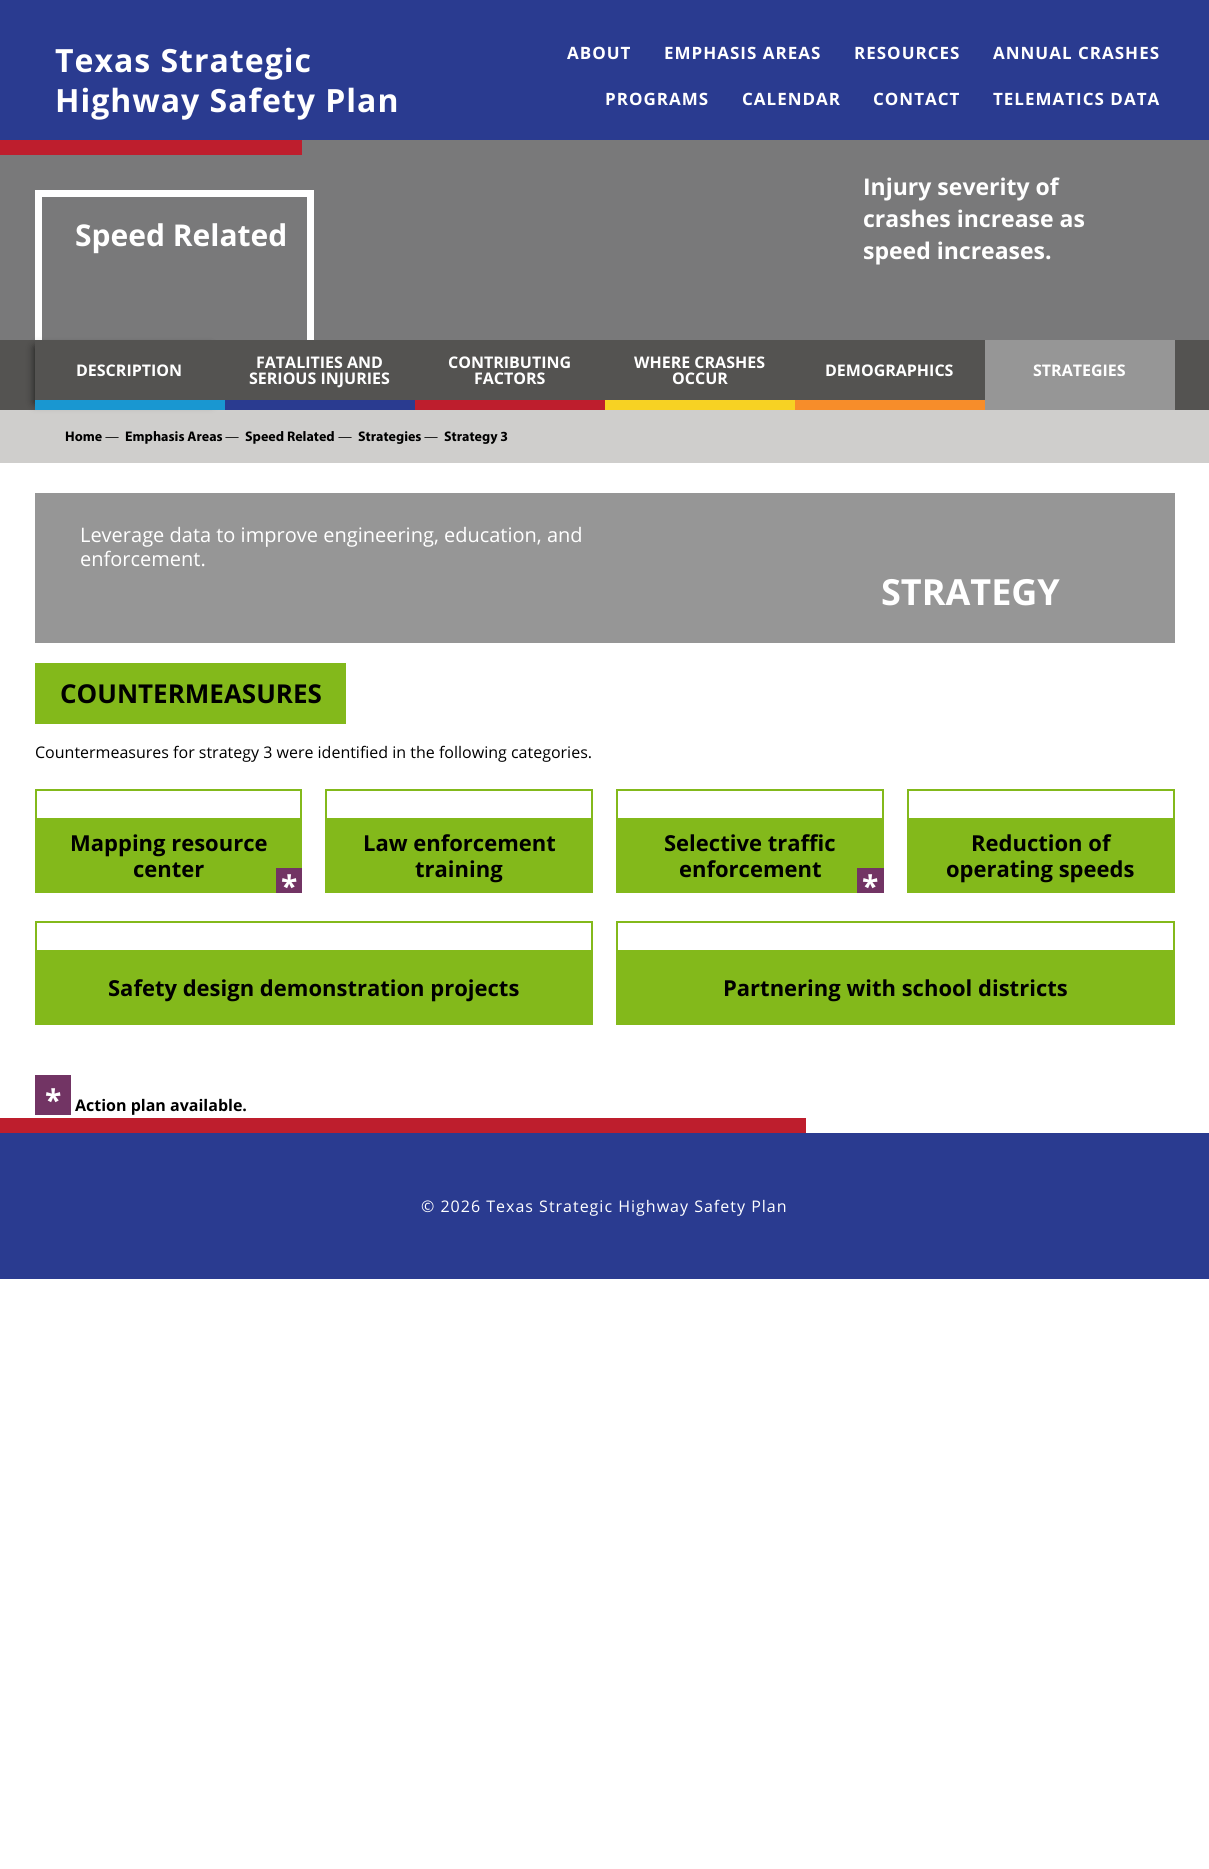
#include <cairo.h>
#include <math.h>
#include <stddef.h>

typedef struct { double x, y; const char *s; } line_t;
typedef struct { double x, y, w, h; unsigned color; } box_t;

static void ink(cairo_t *ctx, unsigned color) {
    cairo_set_source_rgb(ctx, (color >> 16) / 255.0, (color >> 8 & 255) / 255.0, (color & 255) / 255.0);
}

static void write_spaced(cairo_t *ctx, double x, double y, const char *s, double letter, double word) {
    cairo_move_to(ctx, x, y);
    while (*s) {
        char ch[5] = {0};
        int n = 0;
        do ch[n++] = *s++; while ((*s & 0xC0) == 0x80);
        cairo_show_text(ctx, ch);
        cairo_rel_move_to(ctx, letter + word * (*ch == ' '), 0);
    }
}

static void round_path(cairo_t *ctx, double x, double y, double w, double h, double r) {
    cairo_new_sub_path(ctx);
    cairo_arc(ctx, x + w - r, y + h - r, r, 0, M_PI / 2);
    cairo_arc(ctx, x + r, y + h - r, r, M_PI / 2, M_PI);
    cairo_arc(ctx, x + r, y + r, r, M_PI, 1.5 * M_PI);
    cairo_arc(ctx, x + w - r, y + r, r, 1.5 * M_PI, 2 * M_PI);
    cairo_close_path(ctx);
}

static void blur_box(cairo_t *ctx, double x, double y, double w, double h, double r, double blur, double alpha) {
    cairo_push_group_with_content(ctx, CAIRO_CONTENT_ALPHA);
    cairo_set_operator(ctx, CAIRO_OPERATOR_SOURCE);
    for (int i = 15; i >= -15 && fmin(w, h) + blur * i / 3 > 0; i -= 2) {
        double e = blur * i / 6;
        cairo_set_source_rgba(ctx, 0, 0, 0, alpha * erfc((i - 1) / 8.5) / 2);
        round_path(ctx, x - e, y - e, w + 2 * e, h + 2 * e, fmax(0, fmin(r + e + blur * .6, fmin(w, h) / 2 + e)));
        cairo_fill(ctx);
    }
    cairo_pattern_t *soft = cairo_pop_group(ctx);
    cairo_mask(ctx, soft);
    cairo_pattern_destroy(soft);
}

int main(void) {
    cairo_surface_t *surface = cairo_image_surface_create(CAIRO_FORMAT_RGB24, 1209, 1869);
    cairo_t *ctx = cairo_create(surface);
    cairo_font_options_t *options = cairo_font_options_create();
    cairo_font_options_set_hint_metrics(options, CAIRO_HINT_METRICS_OFF);
    cairo_font_options_set_hint_style(options, CAIRO_HINT_STYLE_NONE);
    cairo_set_font_options(ctx, options);
    cairo_set_miter_limit(ctx, 4);
    ink(ctx, 0xFFFFFF);
    cairo_paint(ctx);
    ink(ctx, 0x2A3B90);
    cairo_rectangle(ctx, 0, 0, 1209, 140);
    cairo_fill(ctx);
    cairo_select_font_face(ctx, "Open Sans", CAIRO_FONT_SLANT_NORMAL, CAIRO_FONT_WEIGHT_BOLD);
    cairo_set_font_size(ctx, 32);
    ink(ctx, 0xFFFFFF);
    write_spaced(ctx, 55, 72, "Texas Strategic", 1, 0);
    write_spaced(ctx, 55, 112, "Highway Safety Plan", 1, 0);
    cairo_set_font_size(ctx, 17);
    {
        static const line_t items[] = {
            {567, 59, "ABOUT"},
            {664, 59, "EMPHASIS AREAS"},
            {854, 59, "RESOURCES"},
            {993, 59, "ANNUAL CRASHES"},
            {605, 105, "PROGRAMS"},
            {742, 105, "CALENDAR"},
            {873, 105, "CONTACT"},
            {993, 105, "TELEMATICS DATA"},
        };
        for (size_t i = 0; i < sizeof items / sizeof *items; i++) {
            write_spaced(ctx, items[i].x, items[i].y, items[i].s, 1, 0);
        }
    }
    {
        static const box_t items[] = {
            {0, 140, 1209, 200, 0x79797A},
            {0, 140, 302, 15, 0xBE1E2D},
            {35, 190, 279, 7, 0xFFFFFF},
            {307, 190, 7, 150, 0xFFFFFF},
            {35, 190, 7, 150, 0xFFFFFF},
        };
        for (size_t i = 0; i < sizeof items / sizeof *items; i++) {
            ink(ctx, items[i].color);
            cairo_rectangle(ctx, items[i].x, items[i].y, items[i].w, items[i].h);
            cairo_fill(ctx);
        }
    }
    cairo_set_font_size(ctx, 30);
    cairo_move_to(ctx, 75, 246);
    cairo_show_text(ctx, "Speed Related");
    cairo_set_font_size(ctx, 23);
    {
        static const line_t items[] = {
            {863, 195, "Injury severity of"},
            {863, 227, "crashes increase as"},
            {863, 259, "speed increases."},
        };
        for (size_t i = 0; i < sizeof items / sizeof *items; i++) {
            cairo_move_to(ctx, items[i].x, items[i].y);
            cairo_show_text(ctx, items[i].s);
        }
    }
    ink(ctx, 0x545351);
    cairo_rectangle(ctx, 0, 340, 1209, 70);
    cairo_fill(ctx);
    ink(ctx, 0xCFCECC);
    cairo_rectangle(ctx, 0, 410, 1209, 53);
    cairo_fill(ctx);
    cairo_save(ctx);
    cairo_set_fill_rule(ctx, CAIRO_FILL_RULE_EVEN_ODD);
    cairo_new_path(ctx);
    cairo_move_to(ctx, 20, 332);
    cairo_line_to(ctx, 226, 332);
    cairo_line_to(ctx, 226, 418);
    cairo_line_to(ctx, 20, 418);
    cairo_close_path(ctx);
    cairo_move_to(ctx, 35, 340);
    cairo_line_to(ctx, 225, 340);
    cairo_line_to(ctx, 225, 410);
    cairo_line_to(ctx, 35, 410);
    cairo_close_path(ctx);
    cairo_clip(ctx);
    ink(ctx, 0x000000);
    blur_box(ctx, 35, 347, 176, 56, 0, 4.5, 0.7);
    cairo_restore(ctx);
    ink(ctx, 0x1997D1);
    cairo_rectangle(ctx, 35, 400, 190, 10);
    cairo_fill(ctx);
    cairo_set_font_size(ctx, 16);
    ink(ctx, 0xFFFFFF);
    cairo_move_to(ctx, 76, 376);
    cairo_show_text(ctx, "DESCRIPTION");
    ink(ctx, 0x2A3B90);
    cairo_rectangle(ctx, 225, 400, 190, 10);
    cairo_fill(ctx);
    ink(ctx, 0xFFFFFF);
    cairo_move_to(ctx, 256, 368);
    cairo_show_text(ctx, "FATALITIES AND");
    cairo_move_to(ctx, 249, 384);
    cairo_show_text(ctx, "SERIOUS INJURIES");
    ink(ctx, 0xBE1E2D);
    cairo_rectangle(ctx, 415, 400, 190, 10);
    cairo_fill(ctx);
    ink(ctx, 0xFFFFFF);
    cairo_move_to(ctx, 448, 368);
    cairo_show_text(ctx, "CONTRIBUTING");
    cairo_move_to(ctx, 474, 384);
    cairo_show_text(ctx, "FACTORS");
    ink(ctx, 0xF7D223);
    cairo_rectangle(ctx, 605, 400, 190, 10);
    cairo_fill(ctx);
    ink(ctx, 0xFFFFFF);
    cairo_move_to(ctx, 634, 368);
    cairo_show_text(ctx, "WHERE CRASHES");
    cairo_move_to(ctx, 672, 384);
    cairo_show_text(ctx, "OCCUR");
    ink(ctx, 0xF78D2A);
    cairo_rectangle(ctx, 795, 400, 190, 10);
    cairo_fill(ctx);
    ink(ctx, 0xFFFFFF);
    cairo_move_to(ctx, 825, 376);
    cairo_show_text(ctx, "DEMOGRAPHICS");
    ink(ctx, 0x969696);
    cairo_rectangle(ctx, 985, 340, 190, 70);
    cairo_fill(ctx);
    ink(ctx, 0xFFFFFF);
    cairo_move_to(ctx, 1033, 376);
    cairo_show_text(ctx, "STRATEGIES");
    cairo_select_font_face(ctx, "Myriad", CAIRO_FONT_SLANT_NORMAL, CAIRO_FONT_WEIGHT_BOLD);
    cairo_set_font_size(ctx, 14);
    ink(ctx, 0x000000);
    cairo_move_to(ctx, 65, 441);
    cairo_show_text(ctx, "Home");
    cairo_select_font_face(ctx, "Myriad", CAIRO_FONT_SLANT_NORMAL, CAIRO_FONT_WEIGHT_NORMAL);
    cairo_move_to(ctx, 105, 441);
    cairo_show_text(ctx, "—");
    cairo_select_font_face(ctx, "Myriad", CAIRO_FONT_SLANT_NORMAL, CAIRO_FONT_WEIGHT_BOLD);
    cairo_move_to(ctx, 125, 441);
    cairo_show_text(ctx, "Emphasis Areas");
    cairo_select_font_face(ctx, "Myriad", CAIRO_FONT_SLANT_NORMAL, CAIRO_FONT_WEIGHT_NORMAL);
    cairo_move_to(ctx, 225, 441);
    cairo_show_text(ctx, "—");
    cairo_select_font_face(ctx, "Myriad", CAIRO_FONT_SLANT_NORMAL, CAIRO_FONT_WEIGHT_BOLD);
    cairo_move_to(ctx, 245, 441);
    cairo_show_text(ctx, "Speed Related");
    cairo_select_font_face(ctx, "Myriad", CAIRO_FONT_SLANT_NORMAL, CAIRO_FONT_WEIGHT_NORMAL);
    cairo_move_to(ctx, 338, 441);
    cairo_show_text(ctx, "—");
    cairo_select_font_face(ctx, "Myriad", CAIRO_FONT_SLANT_NORMAL, CAIRO_FONT_WEIGHT_BOLD);
    cairo_move_to(ctx, 358, 441);
    cairo_show_text(ctx, "Strategies");
    cairo_select_font_face(ctx, "Myriad", CAIRO_FONT_SLANT_NORMAL, CAIRO_FONT_WEIGHT_NORMAL);
    cairo_move_to(ctx, 424, 441);
    cairo_show_text(ctx, "—");
    cairo_select_font_face(ctx, "Myriad", CAIRO_FONT_SLANT_NORMAL, CAIRO_FONT_WEIGHT_BOLD);
    cairo_move_to(ctx, 444, 441);
    cairo_show_text(ctx, "Strategy 3");
    ink(ctx, 0x969696);
    cairo_rectangle(ctx, 35, 493, 1140, 150);
    cairo_fill(ctx);
    cairo_select_font_face(ctx, "Open Sans", CAIRO_FONT_SLANT_NORMAL, CAIRO_FONT_WEIGHT_NORMAL);
    cairo_set_font_size(ctx, 20);
    ink(ctx, 0xFFFFFF);
    cairo_move_to(ctx, 80, 542);
    cairo_show_text(ctx, "Leverage data to improve engineering, education, and");
    cairo_move_to(ctx, 80, 566);
    cairo_show_text(ctx, "enforcement.");
    cairo_select_font_face(ctx, "Open Sans", CAIRO_FONT_SLANT_NORMAL, CAIRO_FONT_WEIGHT_BOLD);
    cairo_set_font_size(ctx, 36);
    cairo_move_to(ctx, 881, 605);
    cairo_show_text(ctx, "STRATEGY");
    ink(ctx, 0x83B91B);
    cairo_rectangle(ctx, 35, 663, 311, 61);
    cairo_fill(ctx);
    cairo_set_font_size(ctx, 26);
    ink(ctx, 0x000000);
    cairo_move_to(ctx, 60, 703);
    cairo_show_text(ctx, "COUNTERMEASURES");
    cairo_select_font_face(ctx, "Open Sans", CAIRO_FONT_SLANT_NORMAL, CAIRO_FONT_WEIGHT_NORMAL);
    cairo_set_font_size(ctx, 16);
    cairo_move_to(ctx, 35, 758);
    cairo_show_text(ctx, "Countermeasures for strategy 3 were identified in the following categories.");
    {
        static const box_t items[] = {
            {35, 818, 267, 75, 0x83B91B},
            {35, 789, 267, 2, 0x83B91B},
            {300, 789, 2, 29, 0x83B91B},
            {35, 789, 2, 29, 0x83B91B},
        };
        for (size_t i = 0; i < sizeof items / sizeof *items; i++) {
            ink(ctx, items[i].color);
            cairo_rectangle(ctx, items[i].x, items[i].y, items[i].w, items[i].h);
            cairo_fill(ctx);
        }
    }
    cairo_select_font_face(ctx, "Open Sans", CAIRO_FONT_SLANT_NORMAL, CAIRO_FONT_WEIGHT_BOLD);
    cairo_set_font_size(ctx, 22);
    ink(ctx, 0x000000);
    cairo_move_to(ctx, 70, 851);
    cairo_show_text(ctx, "Mapping resource");
    cairo_move_to(ctx, 133, 877);
    cairo_show_text(ctx, "center");
    ink(ctx, 0x723464);
    cairo_rectangle(ctx, 276, 868, 26, 25);
    cairo_fill(ctx);
    cairo_set_font_size(ctx, 30);
    ink(ctx, 0xFFFFFF);
    cairo_move_to(ctx, 281, 897);
    cairo_show_text(ctx, "*");
    {
        static const box_t items[] = {
            {325, 818, 268, 75, 0x83B91B},
            {325, 789, 268, 2, 0x83B91B},
            {591, 789, 2, 29, 0x83B91B},
            {325, 789, 2, 29, 0x83B91B},
        };
        for (size_t i = 0; i < sizeof items / sizeof *items; i++) {
            ink(ctx, items[i].color);
            cairo_rectangle(ctx, items[i].x, items[i].y, items[i].w, items[i].h);
            cairo_fill(ctx);
        }
    }
    cairo_set_font_size(ctx, 22);
    ink(ctx, 0x000000);
    cairo_move_to(ctx, 363, 851);
    cairo_show_text(ctx, "Law enforcement");
    cairo_move_to(ctx, 415, 877);
    cairo_show_text(ctx, "training");
    {
        static const box_t items[] = {
            {616, 818, 268, 75, 0x83B91B},
            {616, 789, 268, 2, 0x83B91B},
            {882, 789, 2, 29, 0x83B91B},
            {616, 789, 2, 29, 0x83B91B},
        };
        for (size_t i = 0; i < sizeof items / sizeof *items; i++) {
            ink(ctx, items[i].color);
            cairo_rectangle(ctx, items[i].x, items[i].y, items[i].w, items[i].h);
            cairo_fill(ctx);
        }
    }
    ink(ctx, 0x000000);
    cairo_move_to(ctx, 664, 851);
    cairo_show_text(ctx, "Selective traffic");
    cairo_move_to(ctx, 679, 877);
    cairo_show_text(ctx, "enforcement");
    ink(ctx, 0x723464);
    cairo_rectangle(ctx, 857, 868, 27, 25);
    cairo_fill(ctx);
    cairo_set_font_size(ctx, 30);
    ink(ctx, 0xFFFFFF);
    cairo_move_to(ctx, 862, 897);
    cairo_show_text(ctx, "*");
    {
        static const box_t items[] = {
            {907, 818, 268, 75, 0x83B91B},
            {907, 789, 268, 2, 0x83B91B},
            {1173, 789, 2, 29, 0x83B91B},
            {907, 789, 2, 29, 0x83B91B},
        };
        for (size_t i = 0; i < sizeof items / sizeof *items; i++) {
            ink(ctx, items[i].color);
            cairo_rectangle(ctx, items[i].x, items[i].y, items[i].w, items[i].h);
            cairo_fill(ctx);
        }
    }
    cairo_set_font_size(ctx, 22);
    ink(ctx, 0x000000);
    cairo_move_to(ctx, 971, 851);
    cairo_show_text(ctx, "Reduction of");
    cairo_move_to(ctx, 946, 877);
    cairo_show_text(ctx, "operating speeds");
    {
        static const box_t items[] = {
            {35, 950, 558, 75, 0x83B91B},
            {35, 921, 558, 2, 0x83B91B},
            {591, 921, 2, 29, 0x83B91B},
            {35, 921, 2, 29, 0x83B91B},
        };
        for (size_t i = 0; i < sizeof items / sizeof *items; i++) {
            ink(ctx, items[i].color);
            cairo_rectangle(ctx, items[i].x, items[i].y, items[i].w, items[i].h);
            cairo_fill(ctx);
        }
    }
    ink(ctx, 0x000000);
    cairo_move_to(ctx, 108, 996);
    cairo_show_text(ctx, "Safety design demonstration projects");
    {
        static const box_t items[] = {
            {616, 950, 559, 75, 0x83B91B},
            {616, 921, 559, 2, 0x83B91B},
            {1173, 921, 2, 29, 0x83B91B},
            {616, 921, 2, 29, 0x83B91B},
        };
        for (size_t i = 0; i < sizeof items / sizeof *items; i++) {
            ink(ctx, items[i].color);
            cairo_rectangle(ctx, items[i].x, items[i].y, items[i].w, items[i].h);
            cairo_fill(ctx);
        }
    }
    ink(ctx, 0x000000);
    cairo_move_to(ctx, 723, 996);
    cairo_show_text(ctx, "Partnering with school districts");
    ink(ctx, 0x723464);
    cairo_rectangle(ctx, 35, 1075, 36, 40);
    cairo_fill(ctx);
    cairo_set_font_size(ctx, 30);
    ink(ctx, 0xFFFFFF);
    cairo_move_to(ctx, 45, 1111);
    cairo_show_text(ctx, "*");
    cairo_set_font_size(ctx, 16);
    ink(ctx, 0x000000);
    cairo_move_to(ctx, 75, 1111);
    cairo_show_text(ctx, "Action plan available.");
    ink(ctx, 0xBE1E2D);
    cairo_rectangle(ctx, 0, 1118, 806, 15);
    cairo_fill(ctx);
    ink(ctx, 0x2A3B90);
    cairo_rectangle(ctx, 0, 1133, 1209, 146);
    cairo_fill(ctx);
    cairo_select_font_face(ctx, "Open Sans", CAIRO_FONT_SLANT_NORMAL, CAIRO_FONT_WEIGHT_NORMAL);
    ink(ctx, 0xFFFFFF);
    write_spaced(ctx, 421, 1212, "© 2026 Texas Strategic Highway Safety Plan", 1, 0);
    cairo_surface_write_to_png(surface, "image.png");
    cairo_font_options_destroy(options);
    cairo_destroy(ctx);
    cairo_surface_destroy(surface);
    return 0;
}
